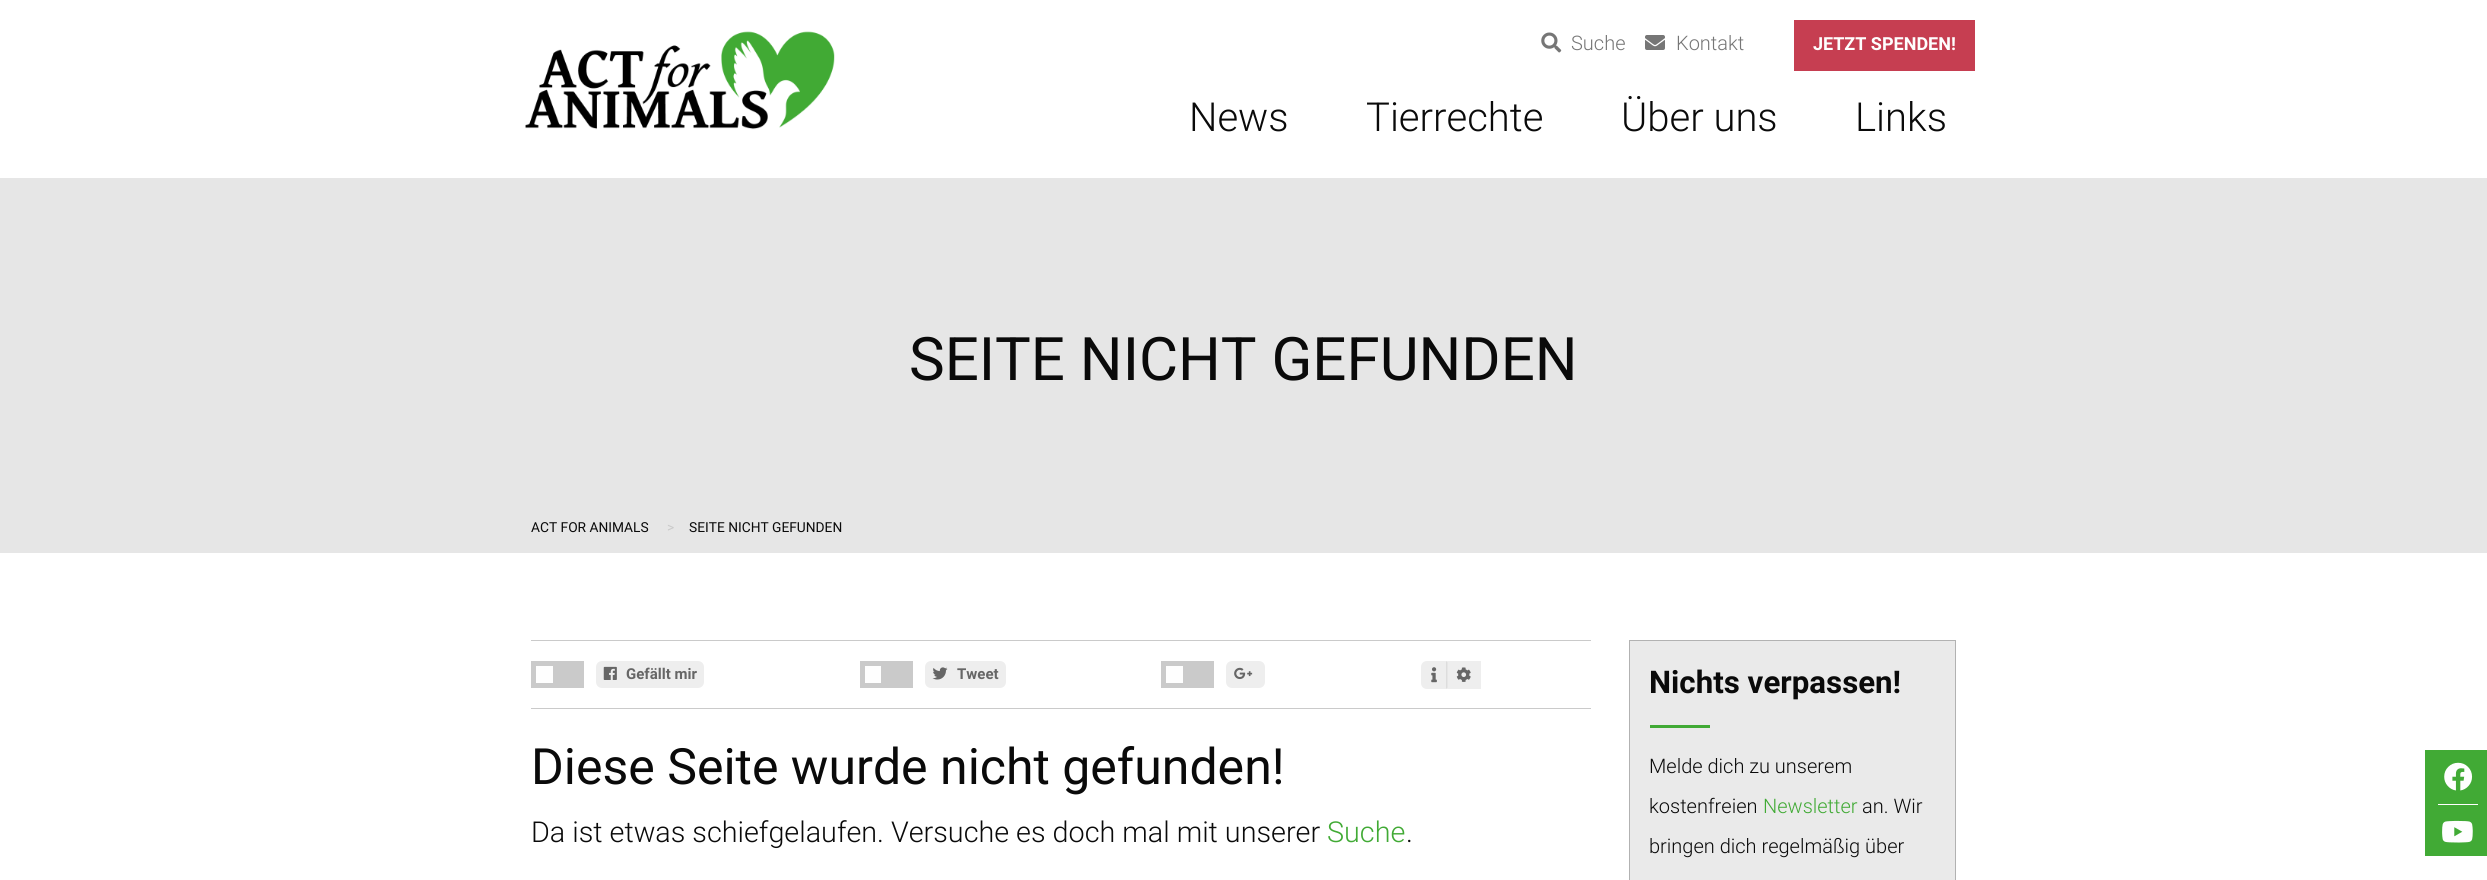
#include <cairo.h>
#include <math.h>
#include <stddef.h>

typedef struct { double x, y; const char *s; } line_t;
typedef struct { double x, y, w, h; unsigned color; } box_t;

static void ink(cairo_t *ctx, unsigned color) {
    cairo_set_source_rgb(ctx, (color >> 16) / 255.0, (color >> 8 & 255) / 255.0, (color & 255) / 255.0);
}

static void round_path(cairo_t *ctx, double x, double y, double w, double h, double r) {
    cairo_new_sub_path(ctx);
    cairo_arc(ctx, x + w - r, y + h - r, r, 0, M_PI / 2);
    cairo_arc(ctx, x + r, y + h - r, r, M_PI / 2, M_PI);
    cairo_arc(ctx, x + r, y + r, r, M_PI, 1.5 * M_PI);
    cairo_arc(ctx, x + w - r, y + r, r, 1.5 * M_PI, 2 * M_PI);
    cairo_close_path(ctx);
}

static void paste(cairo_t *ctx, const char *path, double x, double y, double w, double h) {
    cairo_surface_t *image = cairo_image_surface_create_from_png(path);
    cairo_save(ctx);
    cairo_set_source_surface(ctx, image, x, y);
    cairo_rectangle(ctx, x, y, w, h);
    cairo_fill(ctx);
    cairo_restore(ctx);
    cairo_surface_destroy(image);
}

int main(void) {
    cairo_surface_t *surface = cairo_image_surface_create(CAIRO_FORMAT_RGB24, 2487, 880);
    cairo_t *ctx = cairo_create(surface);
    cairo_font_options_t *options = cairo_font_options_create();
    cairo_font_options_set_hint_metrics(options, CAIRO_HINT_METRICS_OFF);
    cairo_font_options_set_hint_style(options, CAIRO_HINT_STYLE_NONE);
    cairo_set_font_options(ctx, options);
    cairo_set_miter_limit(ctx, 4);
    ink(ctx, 0xFFFFFF);
    cairo_paint(ctx);
    paste(ctx, "media/1.png", 1541, 32, 21, 21);
    cairo_select_font_face(ctx, "Roboto Light", CAIRO_FONT_SLANT_NORMAL, CAIRO_FONT_WEIGHT_NORMAL);
    cairo_set_font_size(ctx, 20);
    ink(ctx, 0x767676);
    cairo_move_to(ctx, 1571, 50);
    cairo_show_text(ctx, "Suche");
    paste(ctx, "media/2.png", 1645, 35, 20, 15);
    cairo_move_to(ctx, 1676, 50);
    cairo_show_text(ctx, "Kontakt");
    ink(ctx, 0xC63E51);
    cairo_rectangle(ctx, 1794, 20, 181, 51);
    cairo_fill(ctx);
    cairo_select_font_face(ctx, "Roboto", CAIRO_FONT_SLANT_NORMAL, CAIRO_FONT_WEIGHT_BOLD);
    cairo_set_font_size(ctx, 18);
    ink(ctx, 0xFEFEFE);
    cairo_move_to(ctx, 1813, 50);
    cairo_show_text(ctx, "JETZT SPENDEN!");
    paste(ctx, "media/3.png", 525, 31, 310, 99);
    cairo_select_font_face(ctx, "Roboto Light", CAIRO_FONT_SLANT_NORMAL, CAIRO_FONT_WEIGHT_NORMAL);
    cairo_set_font_size(ctx, 40);
    ink(ctx, 0x0A0A0A);
    {
        static const line_t items[] = {
            {1189, 131, "News"},
            {1366, 131, "Tierrechte"},
            {1621, 131, "Über uns"},
            {1855, 131, "Links"},
        };
        for (size_t i = 0; i < sizeof items / sizeof *items; i++) {
            cairo_move_to(ctx, items[i].x, items[i].y);
            cairo_show_text(ctx, items[i].s);
        }
    }
    ink(ctx, 0xE6E6E6);
    cairo_rectangle(ctx, 0, 178, 2487, 375);
    cairo_fill(ctx);
    cairo_select_font_face(ctx, "Roboto", CAIRO_FONT_SLANT_NORMAL, CAIRO_FONT_WEIGHT_NORMAL);
    cairo_set_font_size(ctx, 60);
    ink(ctx, 0x0A0A0A);
    cairo_move_to(ctx, 909, 380);
    cairo_show_text(ctx, "SEITE NICHT GEFUNDEN");
    cairo_set_font_size(ctx, 13.75);
    cairo_move_to(ctx, 531, 532);
    cairo_show_text(ctx, "ACT FOR ANIMALS");
    ink(ctx, 0xCACACA);
    cairo_move_to(ctx, 667, 532);
    cairo_show_text(ctx, ">");
    ink(ctx, 0x0A0A0A);
    cairo_move_to(ctx, 689, 532);
    cairo_show_text(ctx, "SEITE NICHT GEFUNDEN");
    {
        static const box_t items[] = {
            {531, 640, 1060, 1, 0xCACACA},
            {531, 708, 1060, 1, 0xCACACA},
            {531, 661, 53, 27, 0xCACACA},
            {536, 666, 17, 17, 0xFEFEFE},
        };
        for (size_t i = 0; i < sizeof items / sizeof *items; i++) {
            ink(ctx, items[i].color);
            cairo_rectangle(ctx, items[i].x, items[i].y, items[i].w, items[i].h);
            cairo_fill(ctx);
        }
    }
    ink(ctx, 0xEEEEEE);
    round_path(ctx, 596, 661, 108, 27, 6);
    cairo_fill(ctx);
    paste(ctx, "media/4.png", 603, 666, 14, 14);
    cairo_select_font_face(ctx, "Roboto", CAIRO_FONT_SLANT_NORMAL, CAIRO_FONT_WEIGHT_BOLD);
    cairo_set_font_size(ctx, 15);
    ink(ctx, 0x666666);
    cairo_move_to(ctx, 626, 679);
    cairo_show_text(ctx, "Gefällt mir");
    ink(ctx, 0xCACACA);
    cairo_rectangle(ctx, 860, 661, 53, 27);
    cairo_fill(ctx);
    ink(ctx, 0xFEFEFE);
    cairo_rectangle(ctx, 865, 666, 16, 17);
    cairo_fill(ctx);
    ink(ctx, 0xEEEEEE);
    round_path(ctx, 925, 661, 81, 27, 6);
    cairo_fill(ctx);
    paste(ctx, "media/5.png", 932, 667, 16, 13);
    ink(ctx, 0x666666);
    cairo_move_to(ctx, 957, 679);
    cairo_show_text(ctx, "Tweet");
    ink(ctx, 0xCACACA);
    cairo_rectangle(ctx, 1161, 661, 53, 27);
    cairo_fill(ctx);
    ink(ctx, 0xFEFEFE);
    cairo_rectangle(ctx, 1166, 666, 17, 17);
    cairo_fill(ctx);
    ink(ctx, 0xEEEEEE);
    round_path(ctx, 1226, 661, 39, 27, 6);
    cairo_fill(ctx);
    paste(ctx, "media/6.png", 1234, 667, 19, 13);
    cairo_new_path(ctx);
    cairo_move_to(ctx, 1427, 661);
    cairo_line_to(ctx, 1446, 661);
    cairo_line_to(ctx, 1446, 689);
    cairo_line_to(ctx, 1427, 689);
    cairo_curve_to(ctx, 1423.5, 689, 1421, 686.5, 1421, 683);
    cairo_line_to(ctx, 1421, 667);
    cairo_curve_to(ctx, 1421, 663.5, 1423.5, 661, 1427, 661);
    cairo_close_path(ctx);
    cairo_fill(ctx);
    paste(ctx, "media/7.png", 1431, 667, 6, 16);
    cairo_rectangle(ctx, 1446, 661, 35, 28);
    cairo_fill(ctx);
    ink(ctx, 0xDDDDDD);
    cairo_new_path(ctx);
    cairo_move_to(ctx, 1446, 689);
    cairo_line_to(ctx, 1446, 661);
    cairo_line_to(ctx, 1447.5, 662.5);
    cairo_line_to(ctx, 1447.5, 687.5);
    cairo_close_path(ctx);
    cairo_fill(ctx);
    paste(ctx, "media/8.png", 1456, 667, 15, 15);
    cairo_select_font_face(ctx, "Roboto", CAIRO_FONT_SLANT_NORMAL, CAIRO_FONT_WEIGHT_NORMAL);
    cairo_set_font_size(ctx, 50);
    ink(ctx, 0x0A0A0A);
    cairo_move_to(ctx, 531, 784);
    cairo_show_text(ctx, "Diese Seite wurde nicht gefunden!");
    cairo_select_font_face(ctx, "Roboto Light", CAIRO_FONT_SLANT_NORMAL, CAIRO_FONT_WEIGHT_NORMAL);
    cairo_set_font_size(ctx, 28.75);
    cairo_move_to(ctx, 531, 842);
    cairo_show_text(ctx, "Da ist etwas schiefgelaufen. Versuche es doch mal mit unserer");
    ink(ctx, 0x41AA35);
    cairo_move_to(ctx, 1327, 842);
    cairo_show_text(ctx, "Suche");
    ink(ctx, 0x0A0A0A);
    cairo_move_to(ctx, 1406, 842);
    cairo_show_text(ctx, ".");
    ink(ctx, 0xEAEAEA);
    cairo_rectangle(ctx, 1629.5, 640.5, 326, 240);
    cairo_fill_preserve(ctx);
    ink(ctx, 0xB2B2B2);
    cairo_set_line_width(ctx, 1);
    cairo_stroke(ctx);
    cairo_select_font_face(ctx, "Roboto", CAIRO_FONT_SLANT_NORMAL, CAIRO_FONT_WEIGHT_BOLD);
    cairo_set_font_size(ctx, 31.25);
    ink(ctx, 0x0A0A0A);
    cairo_move_to(ctx, 1649, 693);
    cairo_show_text(ctx, "Nichts verpassen!");
    ink(ctx, 0x41AA35);
    cairo_rectangle(ctx, 1650, 725, 60, 3);
    cairo_fill(ctx);
    cairo_select_font_face(ctx, "Roboto Light", CAIRO_FONT_SLANT_NORMAL, CAIRO_FONT_WEIGHT_NORMAL);
    cairo_set_font_size(ctx, 20);
    ink(ctx, 0x0A0A0A);
    cairo_move_to(ctx, 1649, 773);
    cairo_show_text(ctx, "Melde dich zu unserem");
    cairo_move_to(ctx, 1649, 813);
    cairo_show_text(ctx, "kostenfreien");
    ink(ctx, 0x41AA35);
    cairo_move_to(ctx, 1763, 813);
    cairo_show_text(ctx, "Newsletter");
    ink(ctx, 0x0A0A0A);
    cairo_move_to(ctx, 1862, 813);
    cairo_show_text(ctx, "an. Wir");
    cairo_move_to(ctx, 1649, 853);
    cairo_show_text(ctx, "bringen dich regelmäßig über");
    ink(ctx, 0x41AA35);
    cairo_rectangle(ctx, 2425, 750, 62, 106);
    cairo_fill(ctx);
    paste(ctx, "media/9.png", 2444, 762, 29, 29);
    ink(ctx, 0xFEFEFE);
    cairo_rectangle(ctx, 2438, 804, 40, 1);
    cairo_fill(ctx);
    paste(ctx, "media/10.png", 2442, 820, 31, 23);
    cairo_surface_write_to_png(surface, "image.png");
    cairo_font_options_destroy(options);
    cairo_destroy(ctx);
    cairo_surface_destroy(surface);
    return 0;
}
